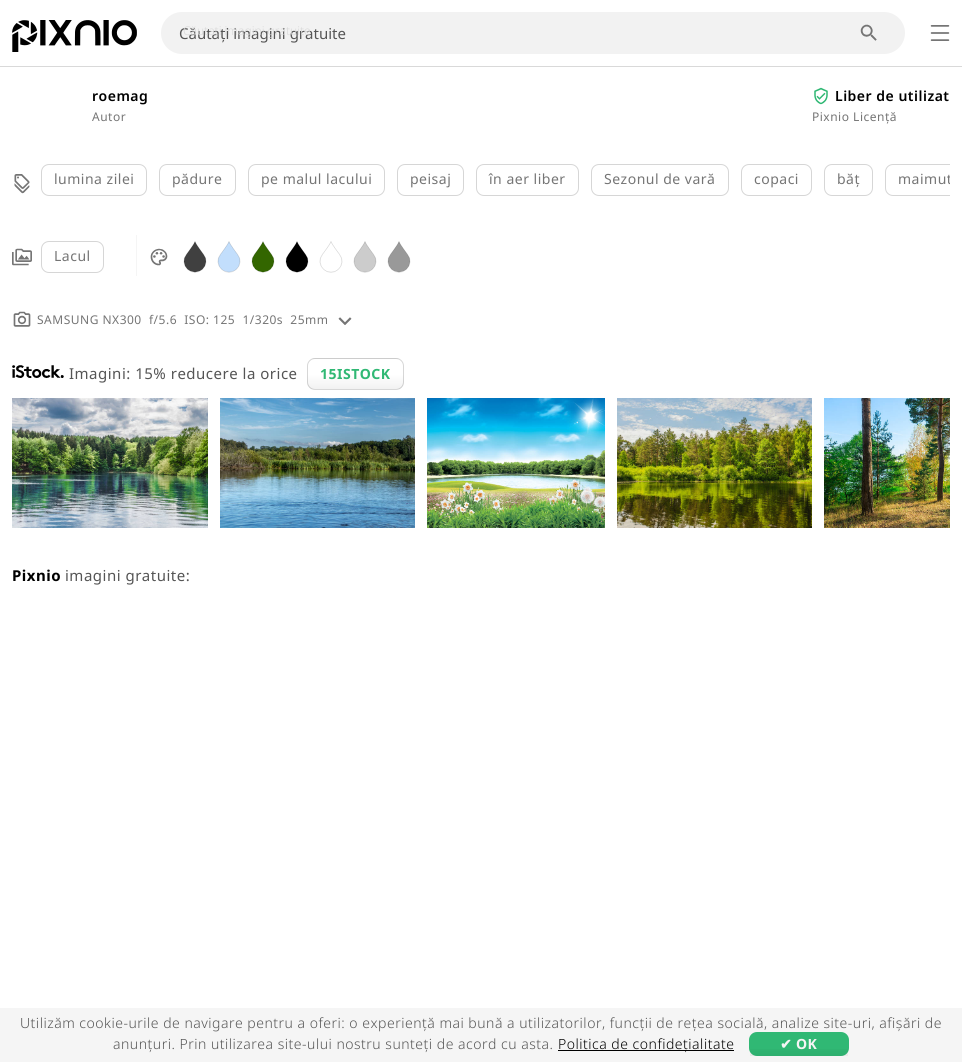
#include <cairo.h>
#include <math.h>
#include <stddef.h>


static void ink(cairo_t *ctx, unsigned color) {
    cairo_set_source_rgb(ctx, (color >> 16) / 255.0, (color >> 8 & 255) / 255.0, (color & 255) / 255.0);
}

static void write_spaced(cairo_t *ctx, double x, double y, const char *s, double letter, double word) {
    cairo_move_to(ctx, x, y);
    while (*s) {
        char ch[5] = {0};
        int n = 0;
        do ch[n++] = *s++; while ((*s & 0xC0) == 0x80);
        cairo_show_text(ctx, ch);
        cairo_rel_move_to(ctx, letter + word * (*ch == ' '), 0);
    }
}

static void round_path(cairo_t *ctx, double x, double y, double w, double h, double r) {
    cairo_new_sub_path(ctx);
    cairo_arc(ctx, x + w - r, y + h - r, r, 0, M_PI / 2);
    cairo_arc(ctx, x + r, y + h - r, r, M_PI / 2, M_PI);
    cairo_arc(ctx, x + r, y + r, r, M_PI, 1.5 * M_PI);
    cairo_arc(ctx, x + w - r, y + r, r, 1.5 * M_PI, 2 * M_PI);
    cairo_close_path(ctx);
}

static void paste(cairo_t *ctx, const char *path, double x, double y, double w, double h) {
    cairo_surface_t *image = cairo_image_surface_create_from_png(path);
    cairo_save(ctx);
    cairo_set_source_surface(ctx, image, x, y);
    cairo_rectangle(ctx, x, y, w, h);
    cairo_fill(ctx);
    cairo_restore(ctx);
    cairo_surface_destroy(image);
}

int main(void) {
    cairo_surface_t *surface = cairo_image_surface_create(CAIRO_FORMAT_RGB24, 962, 1062);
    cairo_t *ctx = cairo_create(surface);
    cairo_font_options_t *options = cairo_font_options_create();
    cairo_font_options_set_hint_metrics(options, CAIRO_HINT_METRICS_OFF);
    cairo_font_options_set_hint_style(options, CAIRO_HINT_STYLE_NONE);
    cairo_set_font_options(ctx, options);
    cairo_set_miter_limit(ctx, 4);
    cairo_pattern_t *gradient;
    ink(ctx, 0xFFFFFF);
    cairo_paint(ctx);
    ink(ctx, 0xD9D9D9);
    cairo_rectangle(ctx, 0, 66, 962, 1);
    cairo_fill(ctx);
    paste(ctx, "media/1.png", 12, 20, 125, 32);
    ink(ctx, 0xF2F2F2);
    round_path(ctx, 161, 12, 744, 42, 21);
    cairo_fill(ctx);
    cairo_select_font_face(ctx, "Noto Sans", CAIRO_FONT_SLANT_NORMAL, CAIRO_FONT_WEIGHT_NORMAL);
    cairo_set_font_size(ctx, 15);
    ink(ctx, 0x555555);
    cairo_move_to(ctx, 179, 39);
    cairo_show_text(ctx, "Căutați imagini gratuite");
    cairo_select_font_face(ctx, "Noto Sans Light", CAIRO_FONT_SLANT_NORMAL, CAIRO_FONT_WEIGHT_NORMAL);
    cairo_set_font_size(ctx, 12);
    ink(ctx, 0xD8D8D8);
    cairo_move_to(ctx, 183, 35);
    cairo_show_text(ctx, "Căutați imagini gratuite");
    paste(ctx, "media/2.png", 860, 24, 17, 17);
    paste(ctx, "media/3.png", 930, 25, 20, 16);
    cairo_select_font_face(ctx, "Noto Sans SemiBold", CAIRO_FONT_SLANT_NORMAL, CAIRO_FONT_WEIGHT_NORMAL);
    cairo_set_font_size(ctx, 14);
    ink(ctx, 0x000000);
    write_spaced(ctx, 92, 101, "roemag", 0.5, 0);
    cairo_select_font_face(ctx, "Noto Sans", CAIRO_FONT_SLANT_NORMAL, CAIRO_FONT_WEIGHT_NORMAL);
    cairo_set_font_size(ctx, 12);
    ink(ctx, 0x757575);
    write_spaced(ctx, 92, 121, "Autor", 0.5, 0);
    paste(ctx, "media/4.png", 814, 87, 14, 18);
    cairo_select_font_face(ctx, "Noto Sans SemiBold", CAIRO_FONT_SLANT_NORMAL, CAIRO_FONT_WEIGHT_NORMAL);
    cairo_set_font_size(ctx, 14);
    ink(ctx, 0x000000);
    write_spaced(ctx, 835, 101, "Liber de utilizat", 0.5, 0);
    cairo_select_font_face(ctx, "Noto Sans", CAIRO_FONT_SLANT_NORMAL, CAIRO_FONT_WEIGHT_NORMAL);
    cairo_set_font_size(ctx, 12);
    ink(ctx, 0x757575);
    write_spaced(ctx, 812, 121, "Pixnio Licență", 0.5, 0);
    paste(ctx, "media/5.png", 14, 174, 16, 20);
    round_path(ctx, 41.5, 164.5, 105, 31, 7.5);
    ink(ctx, 0xD6D6D6);
    cairo_set_line_width(ctx, 1);
    cairo_stroke(ctx);
    cairo_set_font_size(ctx, 14);
    ink(ctx, 0x757575);
    write_spaced(ctx, 54, 184, "lumina zilei", 0.5, 0);
    round_path(ctx, 159.5, 164.5, 76, 31, 7.5);
    ink(ctx, 0xD6D6D6);
    cairo_stroke(ctx);
    ink(ctx, 0x757575);
    write_spaced(ctx, 172, 184, "pădure", 0.5, 0);
    round_path(ctx, 248.5, 164.5, 136, 31, 7.5);
    ink(ctx, 0xD6D6D6);
    cairo_stroke(ctx);
    ink(ctx, 0x757575);
    write_spaced(ctx, 261, 184, "pe malul lacului", 0.5, 0);
    round_path(ctx, 397.5, 164.5, 66, 31, 7.5);
    ink(ctx, 0xD6D6D6);
    cairo_stroke(ctx);
    ink(ctx, 0x757575);
    write_spaced(ctx, 410, 184, "peisaj", 0.5, 0);
    round_path(ctx, 476.5, 164.5, 102, 31, 7.5);
    ink(ctx, 0xD6D6D6);
    cairo_stroke(ctx);
    ink(ctx, 0x757575);
    write_spaced(ctx, 489, 184, "în aer liber", 0.5, 0);
    round_path(ctx, 591.5, 164.5, 137, 31, 7.5);
    ink(ctx, 0xD6D6D6);
    cairo_stroke(ctx);
    ink(ctx, 0x757575);
    write_spaced(ctx, 604, 184, "Sezonul de vară", 0.5, 0);
    round_path(ctx, 741.5, 164.5, 70, 31, 7.5);
    ink(ctx, 0xD6D6D6);
    cairo_stroke(ctx);
    ink(ctx, 0x757575);
    write_spaced(ctx, 754, 184, "copaci", 0.5, 0);
    round_path(ctx, 824.5, 164.5, 48, 31, 7.5);
    ink(ctx, 0xD6D6D6);
    cairo_stroke(ctx);
    ink(ctx, 0x757575);
    write_spaced(ctx, 837, 184, "băț", 0.5, 0);
    cairo_save(ctx);
    cairo_rectangle(ctx, 12, 160, 938, 53);
    cairo_clip(ctx);
    round_path(ctx, 885.5, 164.5, 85, 31, 7.5);
    ink(ctx, 0xD6D6D6);
    cairo_stroke(ctx);
    ink(ctx, 0x757575);
    write_spaced(ctx, 898, 184, "maimut", 0.5, 0);
    cairo_restore(ctx);
    paste(ctx, "media/6.png", 12, 248, 20, 18);
    round_path(ctx, 41.5, 241.5, 62, 31, 7.5);
    ink(ctx, 0xD6D6D6);
    cairo_stroke(ctx);
    ink(ctx, 0x757575);
    write_spaced(ctx, 54, 261, "Lacul", 0.5, 0);
    ink(ctx, 0xF5F5F5);
    cairo_rectangle(ctx, 136, 235, 1, 41);
    cairo_fill(ctx);
    paste(ctx, "media/7.png", 150, 248, 18, 18);
    paste(ctx, "media/8.png", 183, 241, 24, 32);
    paste(ctx, "media/9.png", 217, 241, 24, 32);
    paste(ctx, "media/10.png", 251, 241, 24, 32);
    paste(ctx, "media/11.png", 285, 241, 24, 32);
    paste(ctx, "media/12.png", 319, 241, 24, 32);
    paste(ctx, "media/13.png", 353, 241, 24, 32);
    paste(ctx, "media/14.png", 387, 241, 24, 32);
    paste(ctx, "media/15.png", 13, 311, 18, 16);
    cairo_set_font_size(ctx, 12);
    ink(ctx, 0x757575);
    write_spaced(ctx, 37, 324, "SAMSUNG NX300  f/5.6  ISO: 125  1/320s  25mm", 0.5, 0);
    paste(ctx, "media/16.png", 338, 317, 14, 8);
    paste(ctx, "media/17.png", 12, 365, 52, 13);
    cairo_set_font_size(ctx, 15);
    ink(ctx, 0x555555);
    write_spaced(ctx, 69, 379, "Imagini: 15% reducere la orice", 0.5, 0);
    cairo_save(ctx);
    round_path(ctx, 307, 358, 97, 32, 8);
    cairo_clip(ctx);
    gradient = cairo_pattern_create_linear(356, 329, 356, 359);
    cairo_pattern_add_color_stop_rgba(gradient, 0.5, 1, 1, 1, 1);
    cairo_pattern_add_color_stop_rgba(gradient, 1, 0.949, 0.949, 0.949, 1);
    cairo_set_source(ctx, gradient);
    cairo_pattern_destroy(gradient);
    cairo_rectangle(ctx, 307, 358, 97, 1);
    cairo_fill(ctx);
    gradient = cairo_pattern_create_linear(356, 359, 356, 389);
    cairo_pattern_add_color_stop_rgba(gradient, 0.5, 1, 1, 1, 1);
    cairo_pattern_add_color_stop_rgba(gradient, 1, 0.949, 0.949, 0.949, 1);
    cairo_set_source(ctx, gradient);
    cairo_pattern_destroy(gradient);
    cairo_rectangle(ctx, 307, 359, 97, 30);
    cairo_fill(ctx);
    cairo_restore(ctx);
    round_path(ctx, 307.5, 358.5, 96, 31, 7.5);
    cairo_set_source_rgba(ctx, 0, 0, 0, 0.16);
    cairo_stroke(ctx);
    cairo_select_font_face(ctx, "Noto Sans", CAIRO_FONT_SLANT_NORMAL, CAIRO_FONT_WEIGHT_BOLD);
    cairo_set_font_size(ctx, 14);
    ink(ctx, 0x30B874);
    write_spaced(ctx, 320, 379, "15ISTOCK", 0.5, 0);
    paste(ctx, "media/18.png", 12, 398, 196, 130);
    paste(ctx, "media/19.png", 220, 398, 195, 130);
    paste(ctx, "media/20.png", 427, 398, 178, 130);
    paste(ctx, "media/21.png", 617, 398, 195, 130);
    paste(ctx, "media/22.png", 824, 398, 126, 130);
    cairo_set_font_size(ctx, 15);
    ink(ctx, 0x000000);
    write_spaced(ctx, 12, 581, "Pixnio", 0.5, 0);
    cairo_select_font_face(ctx, "Noto Sans", CAIRO_FONT_SLANT_NORMAL, CAIRO_FONT_WEIGHT_NORMAL);
    ink(ctx, 0x555555);
    write_spaced(ctx, 65, 581, "imagini gratuite:", 0.5, 0);
    ink(ctx, 0xF5F5F5);
    cairo_rectangle(ctx, 0, 1008, 962, 54);
    cairo_fill(ctx);
    cairo_select_font_face(ctx, "Noto Sans Light", CAIRO_FONT_SLANT_NORMAL, CAIRO_FONT_WEIGHT_NORMAL);
    cairo_set_font_size(ctx, 14);
    ink(ctx, 0x555555);
    write_spaced(ctx, 20, 1028, "Utilizăm cookie-urile de navigare pentru a oferi: o experiență mai bună a utilizatorilor, funcții de rețea socială, analize site-uri, afișări de", 0.5, 0);
    write_spaced(ctx, 113, 1049, "anunțuri. Prin utilizarea site-ului nostru sunteți de acord cu asta.", 0.5, 0);
    ink(ctx, 0x000000);
    cairo_rectangle(ctx, 558, 1050, 176, 1);
    cairo_fill(ctx);
    write_spaced(ctx, 558, 1049, "Politica de confidețialitate", 0.5, 0);
    ink(ctx, 0x30B874);
    round_path(ctx, 749, 1032, 100, 24, 8);
    cairo_fill(ctx);
    gradient = cairo_pattern_create_linear(799, 1032, 799, 1056);
    cairo_pattern_add_color_stop_rgba(gradient, 0.5, 0, 0, 0, 0);
    cairo_pattern_add_color_stop_rgba(gradient, 1, 0, 0, 0, 0.05);
    cairo_set_source(ctx, gradient);
    cairo_pattern_destroy(gradient);
    cairo_rectangle(ctx, 750, 1049, 98, 7);
    cairo_fill(ctx);
    cairo_select_font_face(ctx, "DejaVu Sans", CAIRO_FONT_SLANT_NORMAL, CAIRO_FONT_WEIGHT_BOLD);
    ink(ctx, 0xF5F5F5);
    write_spaced(ctx, 780, 1049, "✔", 0.5, 0);
    cairo_select_font_face(ctx, "Noto Sans", CAIRO_FONT_SLANT_NORMAL, CAIRO_FONT_WEIGHT_BOLD);
    write_spaced(ctx, 796, 1049, "OK", 0.5, 0);
    cairo_surface_write_to_png(surface, "image.png");
    cairo_font_options_destroy(options);
    cairo_destroy(ctx);
    cairo_surface_destroy(surface);
    return 0;
}
